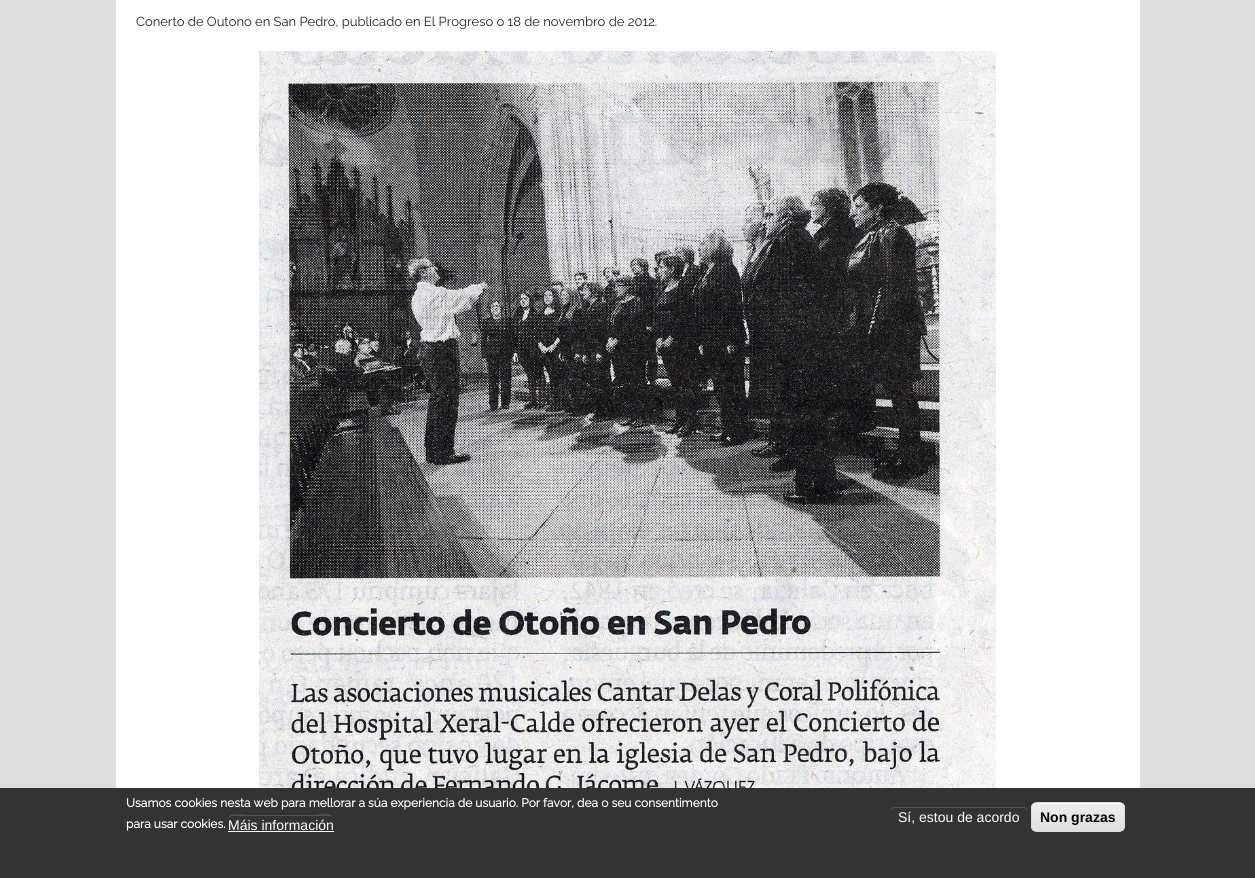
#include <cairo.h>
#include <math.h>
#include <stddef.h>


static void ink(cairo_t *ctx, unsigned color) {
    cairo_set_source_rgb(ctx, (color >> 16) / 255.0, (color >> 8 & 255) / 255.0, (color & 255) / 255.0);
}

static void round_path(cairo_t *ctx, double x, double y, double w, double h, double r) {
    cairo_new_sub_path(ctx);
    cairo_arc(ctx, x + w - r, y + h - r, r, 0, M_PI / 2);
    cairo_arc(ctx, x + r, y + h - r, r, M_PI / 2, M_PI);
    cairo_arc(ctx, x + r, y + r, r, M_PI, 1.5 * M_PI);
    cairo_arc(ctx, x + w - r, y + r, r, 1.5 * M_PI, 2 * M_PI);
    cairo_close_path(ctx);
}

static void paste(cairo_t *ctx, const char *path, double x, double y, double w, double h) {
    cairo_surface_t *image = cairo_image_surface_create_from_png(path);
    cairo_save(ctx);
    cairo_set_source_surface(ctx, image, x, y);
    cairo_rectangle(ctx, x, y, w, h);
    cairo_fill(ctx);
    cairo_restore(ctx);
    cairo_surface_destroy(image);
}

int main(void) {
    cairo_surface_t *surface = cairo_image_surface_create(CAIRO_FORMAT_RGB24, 1255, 878);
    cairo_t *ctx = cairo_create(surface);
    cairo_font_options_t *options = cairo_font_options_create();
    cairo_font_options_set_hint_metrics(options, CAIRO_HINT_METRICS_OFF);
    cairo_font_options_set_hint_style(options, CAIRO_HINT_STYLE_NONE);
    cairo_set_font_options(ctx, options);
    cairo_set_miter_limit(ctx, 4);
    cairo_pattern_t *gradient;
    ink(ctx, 0xDDDDDD);
    cairo_paint(ctx);
    ink(ctx, 0xFFFFFF);
    cairo_rectangle(ctx, 116, 0, 1024, 788);
    cairo_fill(ctx);
    cairo_select_font_face(ctx, "Raleway Thin", CAIRO_FONT_SLANT_NORMAL, CAIRO_FONT_WEIGHT_NORMAL);
    cairo_set_font_size(ctx, 13);
    ink(ctx, 0x222222);
    cairo_move_to(ctx, 136, 26);
    cairo_show_text(ctx, "Conerto de Outono en San Pedro, publicado en El Progreso o 18 de novembro de 2012.");
    paste(ctx, "media/1.png", 259, 51, 737, 737);
    ink(ctx, 0x333333);
    cairo_rectangle(ctx, 0, 788, 1255, 90);
    cairo_fill(ctx);
    cairo_select_font_face(ctx, "Raleway", CAIRO_FONT_SLANT_NORMAL, CAIRO_FONT_WEIGHT_BOLD);
    cairo_set_font_size(ctx, 12);
    ink(ctx, 0xFFFFFF);
    cairo_move_to(ctx, 126, 807);
    cairo_show_text(ctx, "Usamos cookies nesta web para mellorar a súa experiencia de usuario. Por favor, dea o seu consentimento");
    cairo_move_to(ctx, 126, 828);
    cairo_show_text(ctx, "para usar cookies.");
    ink(ctx, 0x525252);
    cairo_new_path(ctx);
    cairo_move_to(ctx, 232, 816);
    cairo_line_to(ctx, 330, 816);
    cairo_curve_to(ctx, 332, 816, 334, 818, 334, 820);
    cairo_curve_to(ctx, 334, 811, 318, 815, 314, 815);
    cairo_line_to(ctx, 248, 815);
    cairo_curve_to(ctx, 244, 815, 228, 811, 228, 820);
    cairo_curve_to(ctx, 228, 818, 230, 816, 232, 816);
    cairo_close_path(ctx);
    cairo_fill(ctx);
    cairo_select_font_face(ctx, "Liberation Sans", CAIRO_FONT_SLANT_NORMAL, CAIRO_FONT_WEIGHT_NORMAL);
    cairo_set_font_size(ctx, 14);
    ink(ctx, 0xFFFFFF);
    cairo_move_to(ctx, 228, 830);
    cairo_show_text(ctx, "Máis información");
    cairo_rectangle(ctx, 228, 831, 106, 1);
    cairo_fill(ctx);
    ink(ctx, 0x525252);
    cairo_new_path(ctx);
    cairo_move_to(ctx, 894, 808);
    cairo_line_to(ctx, 1024, 808);
    cairo_curve_to(ctx, 1026, 808, 1028, 810, 1028, 812);
    cairo_line_to(ctx, 1028, 811);
    cairo_curve_to(ctx, 1028, 809, 1026, 807, 1024, 807);
    cairo_line_to(ctx, 894, 807);
    cairo_curve_to(ctx, 892, 807, 890, 809, 890, 811);
    cairo_line_to(ctx, 890, 812);
    cairo_curve_to(ctx, 890, 810, 892, 808, 894, 808);
    cairo_close_path(ctx);
    cairo_fill(ctx);
    ink(ctx, 0xFFFFFF);
    cairo_move_to(ctx, 898, 822);
    cairo_show_text(ctx, "Sí, estou de acordo");
    cairo_save(ctx);
    round_path(ctx, 1031, 802, 94, 30, 6);
    cairo_clip(ctx);
    gradient = cairo_pattern_create_linear(1078, 803, 1078, 831);
    cairo_pattern_add_color_stop_rgba(gradient, 0.05, 0.929, 0.929, 0.929, 1);
    cairo_pattern_add_color_stop_rgba(gradient, 1, 0.875, 0.875, 0.875, 1);
    cairo_set_source(ctx, gradient);
    cairo_pattern_destroy(gradient);
    cairo_rectangle(ctx, 1031, 803, 94, 28);
    cairo_fill(ctx);
    cairo_restore(ctx);
    cairo_new_path(ctx);
    cairo_move_to(ctx, 1037, 804);
    cairo_line_to(ctx, 1119, 804);
    cairo_curve_to(ctx, 1122, 804, 1124, 806, 1124, 809);
    cairo_curve_to(ctx, 1124, 800, 1111, 803, 1105, 803);
    cairo_line_to(ctx, 1051, 803);
    cairo_curve_to(ctx, 1045, 803, 1032, 800, 1032, 809);
    cairo_curve_to(ctx, 1032, 806, 1034, 804, 1037, 804);
    cairo_close_path(ctx);
    cairo_fill(ctx);
    round_path(ctx, 1031.5, 802.5, 93, 29, 5.5);
    ink(ctx, 0xDCDCDC);
    cairo_set_line_width(ctx, 1);
    cairo_stroke(ctx);
    cairo_select_font_face(ctx, "Liberation Sans", CAIRO_FONT_SLANT_NORMAL, CAIRO_FONT_WEIGHT_BOLD);
    ink(ctx, 0x000000);
    cairo_move_to(ctx, 1040, 822);
    cairo_show_text(ctx, "Non grazas");
    cairo_surface_write_to_png(surface, "image.png");
    cairo_font_options_destroy(options);
    cairo_destroy(ctx);
    cairo_surface_destroy(surface);
    return 0;
}
